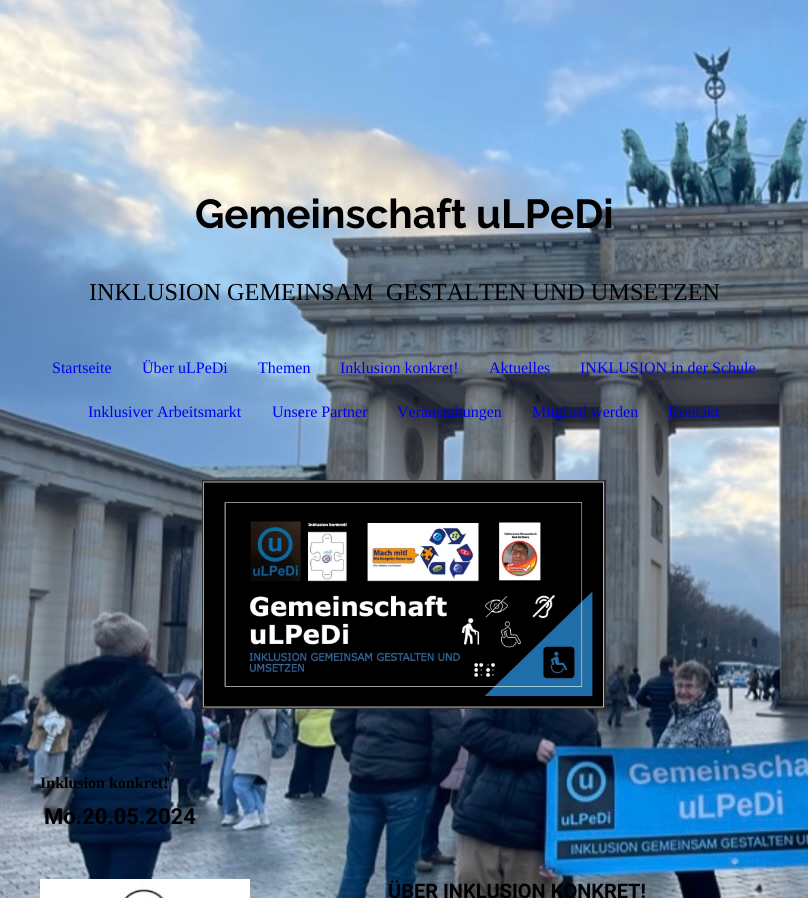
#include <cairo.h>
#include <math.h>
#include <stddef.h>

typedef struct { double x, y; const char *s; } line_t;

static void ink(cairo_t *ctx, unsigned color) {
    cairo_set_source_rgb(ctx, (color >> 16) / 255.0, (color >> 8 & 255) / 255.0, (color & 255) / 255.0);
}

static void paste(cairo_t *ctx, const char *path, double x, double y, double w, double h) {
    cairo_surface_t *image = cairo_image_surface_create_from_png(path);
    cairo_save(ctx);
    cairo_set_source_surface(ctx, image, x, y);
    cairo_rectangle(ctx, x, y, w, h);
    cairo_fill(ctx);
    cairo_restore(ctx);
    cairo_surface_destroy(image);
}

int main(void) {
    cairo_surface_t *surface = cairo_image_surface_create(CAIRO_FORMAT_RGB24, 808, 898);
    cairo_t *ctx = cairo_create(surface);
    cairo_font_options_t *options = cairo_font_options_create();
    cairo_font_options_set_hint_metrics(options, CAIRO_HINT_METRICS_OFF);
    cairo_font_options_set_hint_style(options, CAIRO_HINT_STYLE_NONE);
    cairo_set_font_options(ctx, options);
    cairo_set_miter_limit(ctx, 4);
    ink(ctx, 0xFFFFFF);
    cairo_paint(ctx);
    paste(ctx, "media/1.png", 0, 0, 808, 898);
    cairo_select_font_face(ctx, "Raleway", CAIRO_FONT_SLANT_NORMAL, CAIRO_FONT_WEIGHT_BOLD);
    cairo_set_font_size(ctx, 40.5);
    ink(ctx, 0x000000);
    cairo_move_to(ctx, 195, 228);
    cairo_show_text(ctx, "Gemeinschaft");
    cairo_move_to(ctx, 476, 228);
    cairo_show_text(ctx, "uLPeDi");
    cairo_select_font_face(ctx, "Liberation Serif", CAIRO_FONT_SLANT_NORMAL, CAIRO_FONT_WEIGHT_NORMAL);
    cairo_set_font_size(ctx, 24.25);
    cairo_move_to(ctx, 89, 300);
    cairo_show_text(ctx, "INKLUSION GEMEINSAM  GESTALTEN UND UMSETZEN");
    cairo_set_font_size(ctx, 16);
    ink(ctx, 0x0000EE);
    {
        static const line_t items[] = {
            {52, 373, "Startseite"},
            {142, 373, "Über uLPeDi"},
            {258, 373, "Themen"},
            {340, 373, "Inklusion konkret!"},
            {489, 373, "Aktuelles"},
            {580, 373, "INKLUSION in der Schule"},
            {88, 417, "Inklusiver Arbeitsmarkt"},
            {272, 417, "Unsere Partner"},
            {397, 417, "Veranstaltungen"},
            {532, 417, "Mitglied werden"},
            {668, 417, "Kontakt"},
        };
        for (size_t i = 0; i < sizeof items / sizeof *items; i++) {
            cairo_move_to(ctx, items[i].x, items[i].y);
            cairo_show_text(ctx, items[i].s);
        }
    }
    paste(ctx, "media/2.png", 202, 480, 404, 229);
    cairo_select_font_face(ctx, "Liberation Serif", CAIRO_FONT_SLANT_NORMAL, CAIRO_FONT_WEIGHT_BOLD);
    ink(ctx, 0x000000);
    cairo_move_to(ctx, 40, 788);
    cairo_show_text(ctx, "Inklusion konkret!");
    cairo_select_font_face(ctx, "Roboto", CAIRO_FONT_SLANT_NORMAL, CAIRO_FONT_WEIGHT_BOLD);
    cairo_set_font_size(ctx, 22);
    cairo_move_to(ctx, 44, 824);
    cairo_show_text(ctx, "Mo.20.05.2024");
    paste(ctx, "media/3.png", 40, 879, 210, 19);
    cairo_set_font_size(ctx, 20);
    cairo_move_to(ctx, 388, 898);
    cairo_show_text(ctx, "ÜBER INKLUSION KONKRET!");
    cairo_surface_write_to_png(surface, "image.png");
    cairo_font_options_destroy(options);
    cairo_destroy(ctx);
    cairo_surface_destroy(surface);
    return 0;
}
